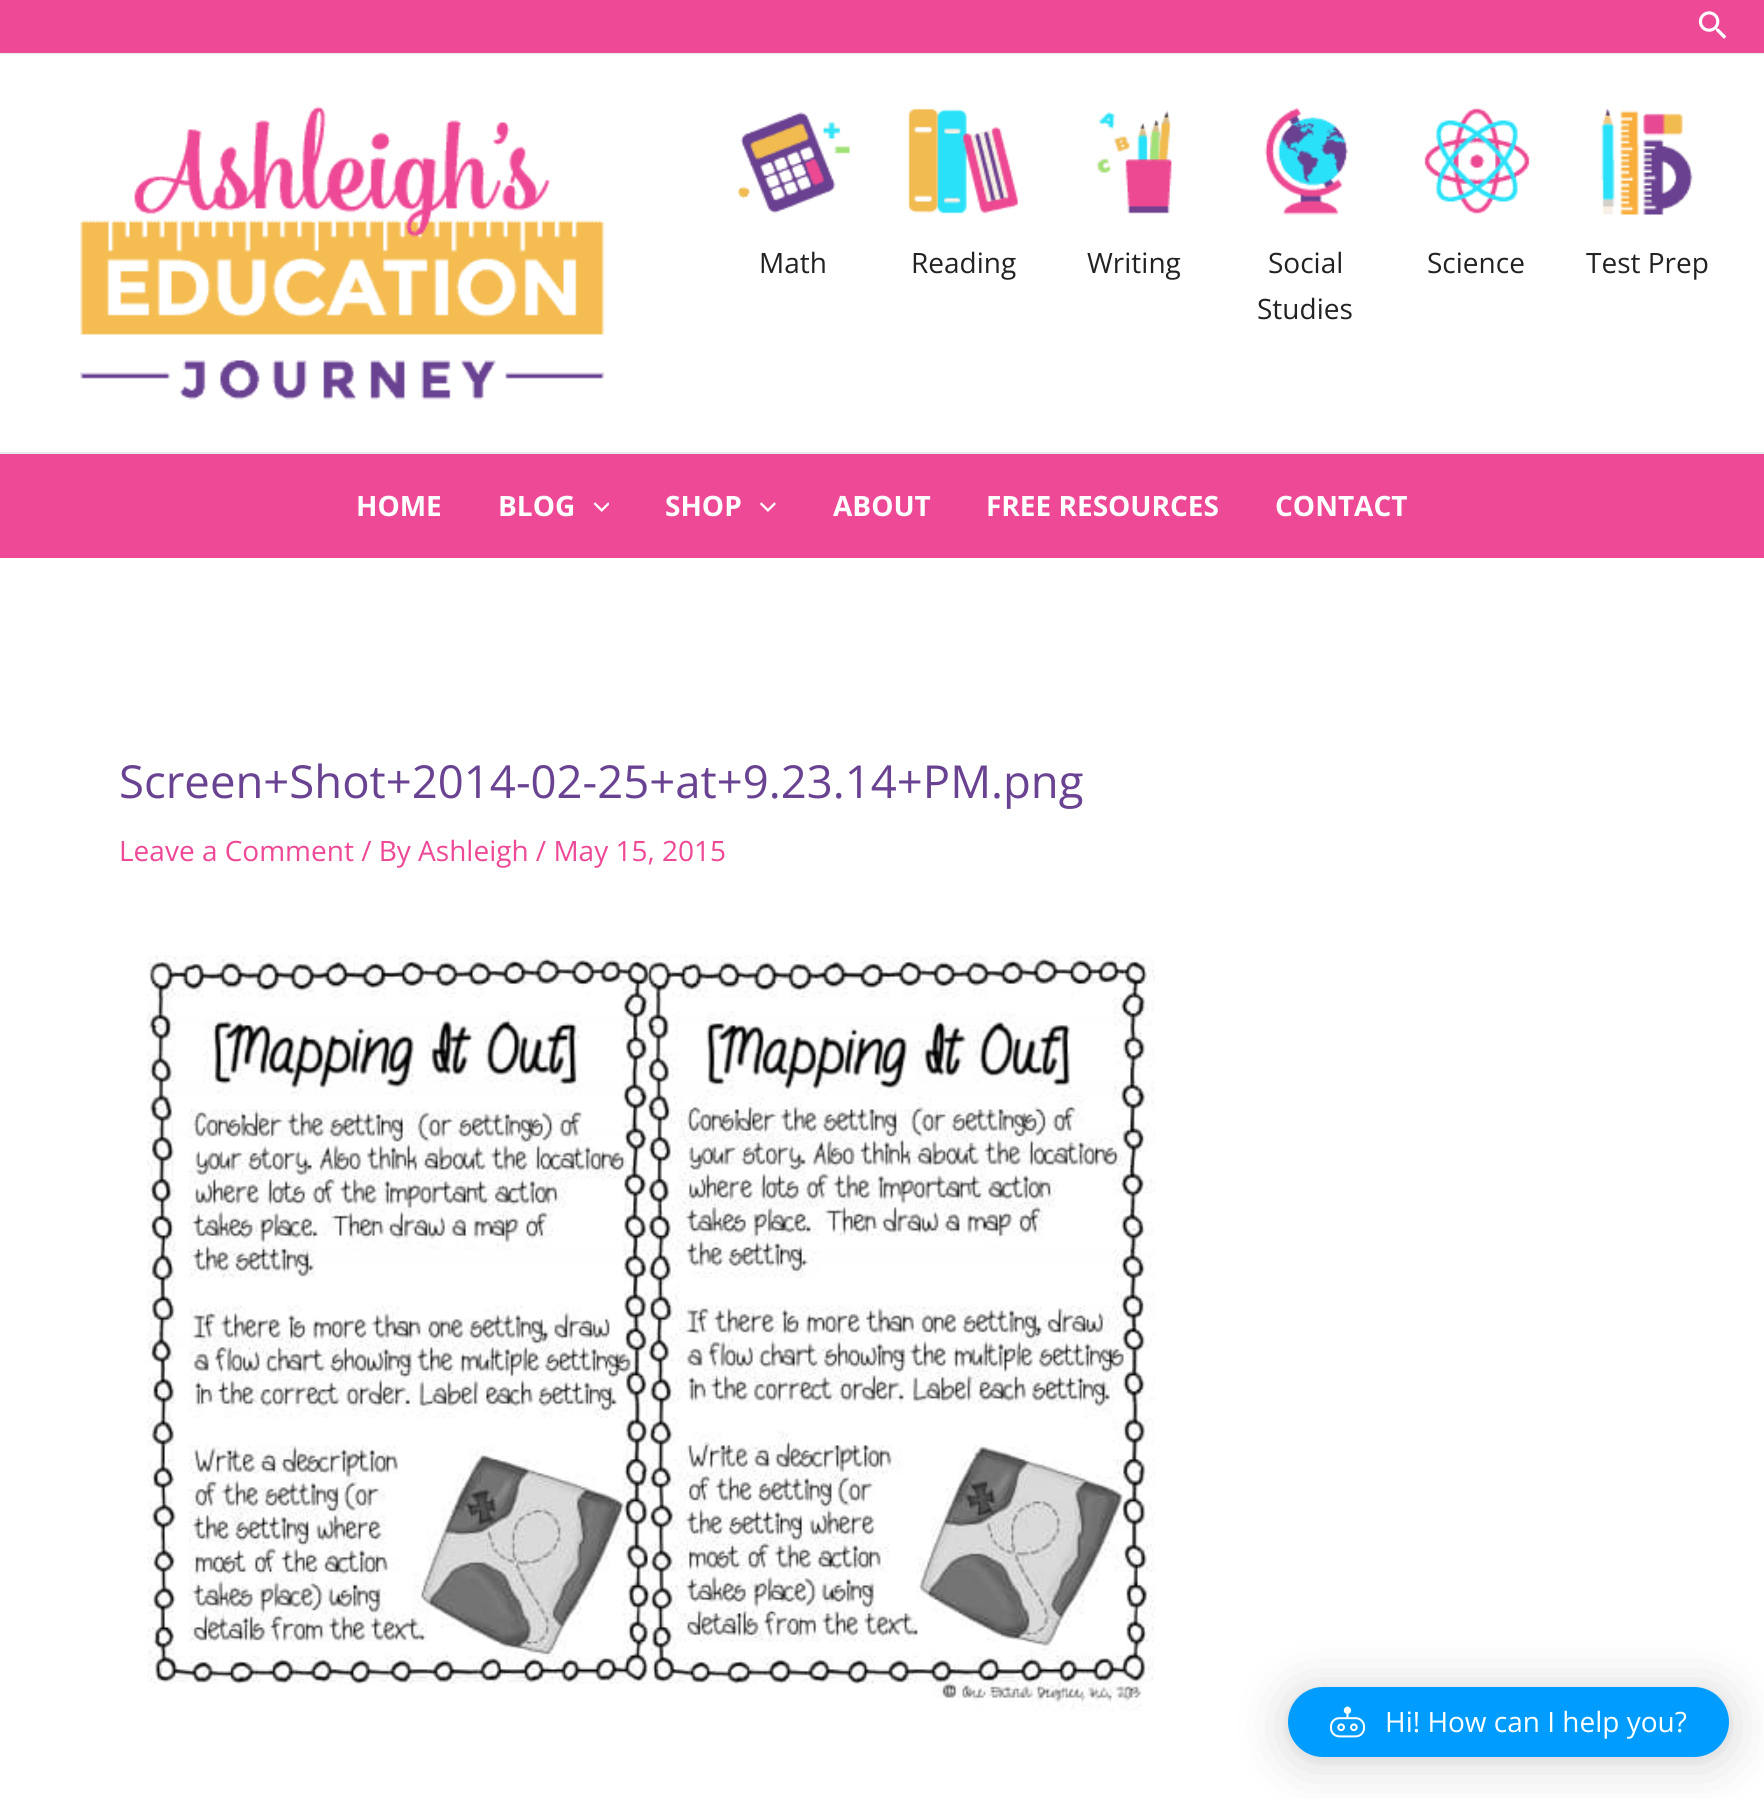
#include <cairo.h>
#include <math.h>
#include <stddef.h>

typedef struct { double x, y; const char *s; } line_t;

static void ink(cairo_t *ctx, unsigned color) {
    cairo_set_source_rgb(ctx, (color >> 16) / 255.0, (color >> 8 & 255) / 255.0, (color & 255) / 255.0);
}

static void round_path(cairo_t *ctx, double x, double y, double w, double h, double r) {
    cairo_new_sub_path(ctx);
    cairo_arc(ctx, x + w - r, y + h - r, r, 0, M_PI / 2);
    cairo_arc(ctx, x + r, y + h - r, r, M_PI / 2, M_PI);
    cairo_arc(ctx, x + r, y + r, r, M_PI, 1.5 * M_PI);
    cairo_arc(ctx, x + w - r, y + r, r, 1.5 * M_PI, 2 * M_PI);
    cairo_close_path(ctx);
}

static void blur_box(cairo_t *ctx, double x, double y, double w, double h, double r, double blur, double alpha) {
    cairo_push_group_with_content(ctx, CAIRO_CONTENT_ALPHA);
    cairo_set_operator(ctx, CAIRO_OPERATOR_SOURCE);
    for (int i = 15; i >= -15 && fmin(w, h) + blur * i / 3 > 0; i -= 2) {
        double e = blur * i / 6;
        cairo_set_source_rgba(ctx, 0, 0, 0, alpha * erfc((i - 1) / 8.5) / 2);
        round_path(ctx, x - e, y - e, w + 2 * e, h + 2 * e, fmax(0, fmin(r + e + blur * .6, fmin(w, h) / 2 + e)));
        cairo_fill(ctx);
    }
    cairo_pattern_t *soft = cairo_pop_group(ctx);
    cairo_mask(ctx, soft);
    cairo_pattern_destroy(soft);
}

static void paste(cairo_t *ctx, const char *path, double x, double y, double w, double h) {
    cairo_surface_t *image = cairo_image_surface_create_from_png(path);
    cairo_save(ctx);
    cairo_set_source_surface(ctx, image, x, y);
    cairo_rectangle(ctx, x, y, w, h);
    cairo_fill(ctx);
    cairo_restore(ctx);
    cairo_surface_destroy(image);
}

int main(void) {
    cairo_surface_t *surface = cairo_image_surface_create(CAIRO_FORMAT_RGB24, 1764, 1799);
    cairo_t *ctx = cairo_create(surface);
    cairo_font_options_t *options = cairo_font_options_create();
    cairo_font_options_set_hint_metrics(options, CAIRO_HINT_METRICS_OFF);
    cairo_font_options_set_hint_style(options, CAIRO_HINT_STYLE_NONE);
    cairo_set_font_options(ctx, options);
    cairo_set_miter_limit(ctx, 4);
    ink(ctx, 0xFFFFFF);
    cairo_paint(ctx);
    ink(ctx, 0xEE4996);
    cairo_rectangle(ctx, 0, 0, 1764, 53);
    cairo_fill(ctx);
    ink(ctx, 0xEAEAEA);
    cairo_rectangle(ctx, 0, 53, 1764, 1);
    cairo_fill(ctx);
    paste(ctx, "media/1.png", 1698, 11, 28, 28);
    cairo_rectangle(ctx, 0, 452, 1764, 2);
    cairo_fill(ctx);
    paste(ctx, "media/2.png", 80, 106, 525, 294);
    paste(ctx, "media/3.png", 737, 112, 113, 102);
    cairo_select_font_face(ctx, "Open Sans", CAIRO_FONT_SLANT_NORMAL, CAIRO_FONT_WEIGHT_NORMAL);
    cairo_set_font_size(ctx, 28);
    ink(ctx, 0x222222);
    cairo_move_to(ctx, 759, 273);
    cairo_show_text(ctx, "Math");
    paste(ctx, "media/4.png", 908, 108, 110, 106);
    cairo_move_to(ctx, 911, 273);
    cairo_show_text(ctx, "Reading");
    paste(ctx, "media/5.png", 1096, 110, 76, 104);
    cairo_move_to(ctx, 1087, 273);
    cairo_show_text(ctx, "Writing");
    paste(ctx, "media/6.png", 1264, 107, 84, 108);
    cairo_move_to(ctx, 1268, 273);
    cairo_show_text(ctx, "Social");
    cairo_move_to(ctx, 1257, 319);
    cairo_show_text(ctx, "Studies");
    paste(ctx, "media/7.png", 1424, 107, 106, 108);
    cairo_move_to(ctx, 1427, 273);
    cairo_show_text(ctx, "Science");
    paste(ctx, "media/8.png", 1601, 108, 92, 107);
    cairo_move_to(ctx, 1586, 273);
    cairo_show_text(ctx, "Test Prep");
    ink(ctx, 0xEE4996);
    cairo_rectangle(ctx, 0, 454, 1764, 104);
    cairo_fill(ctx);
    cairo_select_font_face(ctx, "Open Sans", CAIRO_FONT_SLANT_NORMAL, CAIRO_FONT_WEIGHT_BOLD);
    ink(ctx, 0xFFFFFF);
    cairo_move_to(ctx, 356, 516);
    cairo_show_text(ctx, "HOME");
    cairo_move_to(ctx, 498, 516);
    cairo_show_text(ctx, "BLOG");
    paste(ctx, "media/9.png", 593, 502, 16, 10);
    cairo_move_to(ctx, 665, 516);
    cairo_show_text(ctx, "SHOP");
    paste(ctx, "media/10.png", 760, 502, 16, 10);
    {
        static const line_t items[] = {
            {833, 516, "ABOUT"},
            {986, 516, "FREE RESOURCES"},
            {1275, 516, "CONTACT"},
        };
        for (size_t i = 0; i < sizeof items / sizeof *items; i++) {
            cairo_move_to(ctx, items[i].x, items[i].y);
            cairo_show_text(ctx, items[i].s);
        }
    }
    cairo_select_font_face(ctx, "Open Sans", CAIRO_FONT_SLANT_NORMAL, CAIRO_FONT_WEIGHT_NORMAL);
    cairo_set_font_size(ctx, 45.5);
    ink(ctx, 0x6A4292);
    cairo_move_to(ctx, 119, 798);
    cairo_show_text(ctx, "Screen+Shot+2014-02-25+at+9.23.14+PM.png");
    cairo_set_font_size(ctx, 28);
    ink(ctx, 0xEE4996);
    cairo_move_to(ctx, 119, 861);
    cairo_show_text(ctx, "Leave a Comment / By Ashleigh / May 15, 2015");
    paste(ctx, "media/11.png", 147, 955, 1008, 756);
    ink(ctx, 0x000000);
    blur_box(ctx, 1288, 1691, 441, 70, 35, 28, 0.16);
    blur_box(ctx, 1288, 1689, 441, 70, 35, 5, 0.06);
    ink(ctx, 0x009CFF);
    round_path(ctx, 1288, 1687, 441, 70, 35);
    cairo_fill(ctx);
    paste(ctx, "media/12.png", 1330, 1706, 35, 32);
    ink(ctx, 0xFFFFFF);
    cairo_move_to(ctx, 1385, 1732);
    cairo_show_text(ctx, "Hi! How can I help you?");
    cairo_surface_write_to_png(surface, "image.png");
    cairo_font_options_destroy(options);
    cairo_destroy(ctx);
    cairo_surface_destroy(surface);
    return 0;
}
